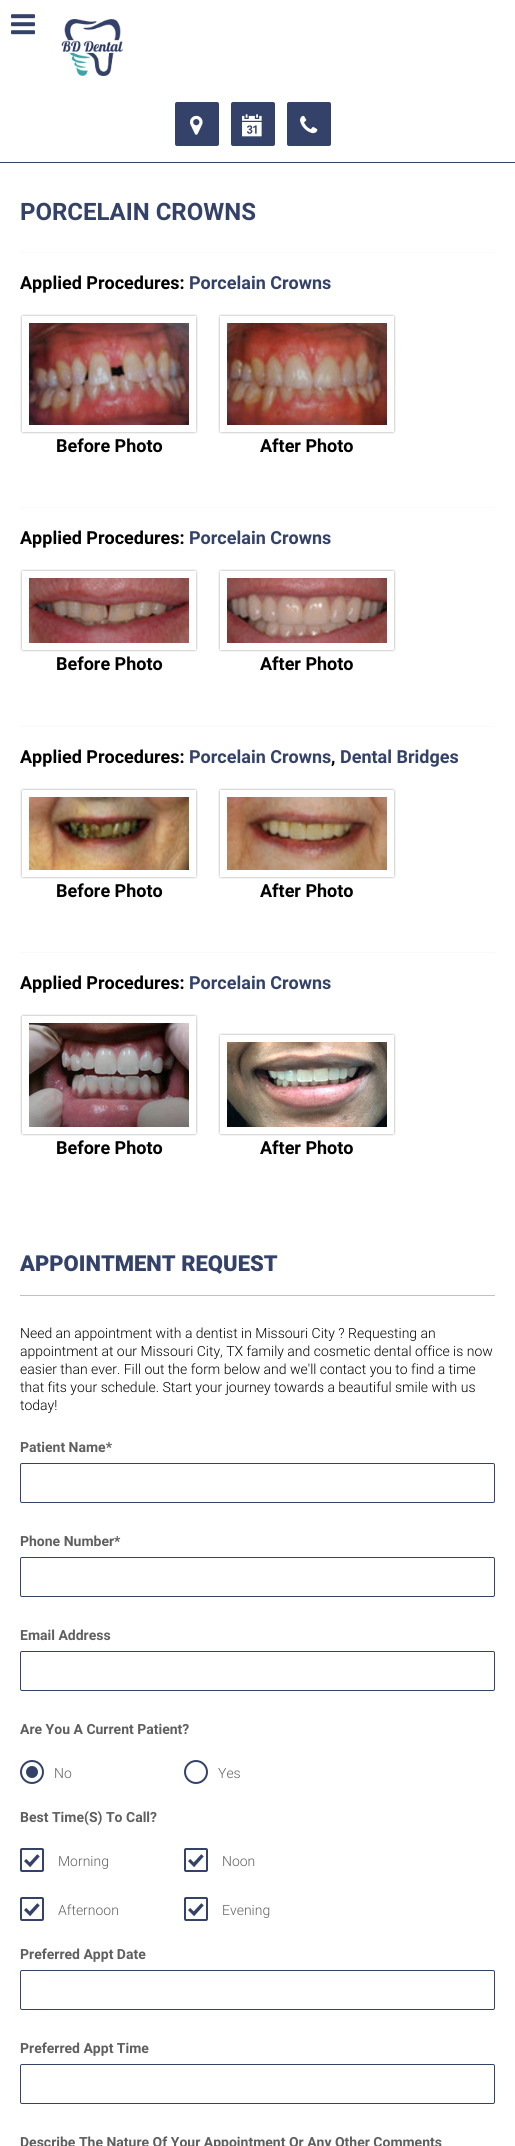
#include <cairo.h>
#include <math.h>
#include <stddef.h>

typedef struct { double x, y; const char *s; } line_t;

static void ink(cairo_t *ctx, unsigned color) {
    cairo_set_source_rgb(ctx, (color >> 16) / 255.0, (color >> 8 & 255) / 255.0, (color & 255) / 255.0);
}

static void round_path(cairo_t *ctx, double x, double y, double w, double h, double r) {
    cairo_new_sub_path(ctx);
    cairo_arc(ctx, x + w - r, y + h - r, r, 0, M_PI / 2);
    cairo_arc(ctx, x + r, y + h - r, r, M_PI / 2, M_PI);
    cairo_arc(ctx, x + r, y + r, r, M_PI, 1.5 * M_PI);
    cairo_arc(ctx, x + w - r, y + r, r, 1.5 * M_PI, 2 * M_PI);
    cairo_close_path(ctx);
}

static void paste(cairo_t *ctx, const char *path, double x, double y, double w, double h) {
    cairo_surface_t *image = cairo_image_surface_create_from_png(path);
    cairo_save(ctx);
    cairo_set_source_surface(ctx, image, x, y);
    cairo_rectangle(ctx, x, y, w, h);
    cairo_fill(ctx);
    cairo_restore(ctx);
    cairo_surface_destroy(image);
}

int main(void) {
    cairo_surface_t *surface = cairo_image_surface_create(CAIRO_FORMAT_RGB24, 515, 2146);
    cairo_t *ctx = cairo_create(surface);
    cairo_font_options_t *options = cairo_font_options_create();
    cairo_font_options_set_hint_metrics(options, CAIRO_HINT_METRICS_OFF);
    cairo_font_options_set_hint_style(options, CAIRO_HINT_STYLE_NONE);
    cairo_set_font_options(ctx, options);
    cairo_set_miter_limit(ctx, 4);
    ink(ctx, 0xFFFFFF);
    cairo_paint(ctx);
    ink(ctx, 0x344269);
    cairo_rectangle(ctx, 0, 162, 515, 1);
    cairo_fill(ctx);
    paste(ctx, "media/1.png", 11, 14, 24, 21);
    paste(ctx, "media/2.png", 61, 18, 63, 59);
    round_path(ctx, 175, 102, 44, 44, 2);
    cairo_fill(ctx);
    paste(ctx, "media/3.png", 190, 115, 13, 20);
    round_path(ctx, 231, 102, 44, 44, 2);
    cairo_fill(ctx);
    paste(ctx, "media/4.png", 242, 114, 20, 23);
    round_path(ctx, 287, 102, 44, 44, 2);
    cairo_fill(ctx);
    paste(ctx, "media/5.png", 300, 115, 18, 19);
    cairo_select_font_face(ctx, "Roboto", CAIRO_FONT_SLANT_NORMAL, CAIRO_FONT_WEIGHT_BOLD);
    cairo_set_font_size(ctx, 24);
    cairo_move_to(ctx, 20, 220);
    cairo_show_text(ctx, "PORCELAIN CROWNS");
    ink(ctx, 0xFAFAFA);
    cairo_rectangle(ctx, 20, 252, 475, 1);
    cairo_fill(ctx);
    cairo_set_font_size(ctx, 18);
    ink(ctx, 0x000000);
    cairo_move_to(ctx, 20, 289);
    cairo_show_text(ctx, "Applied Procedures:");
    ink(ctx, 0x344269);
    cairo_move_to(ctx, 189, 289);
    cairo_show_text(ctx, "Porcelain Crowns");
    paste(ctx, "media/6.png", 20, 314, 178, 120);
    paste(ctx, "media/7.png", 218, 314, 178, 120);
    ink(ctx, 0x000000);
    cairo_move_to(ctx, 56, 452);
    cairo_show_text(ctx, "Before Photo");
    cairo_move_to(ctx, 260, 452);
    cairo_show_text(ctx, "After Photo");
    ink(ctx, 0xFAFAFA);
    cairo_rectangle(ctx, 20, 507, 475, 1);
    cairo_fill(ctx);
    ink(ctx, 0x000000);
    cairo_move_to(ctx, 20, 544);
    cairo_show_text(ctx, "Applied Procedures:");
    ink(ctx, 0x344269);
    cairo_move_to(ctx, 189, 544);
    cairo_show_text(ctx, "Porcelain Crowns");
    paste(ctx, "media/8.png", 20, 569, 178, 83);
    paste(ctx, "media/9.png", 218, 569, 178, 83);
    ink(ctx, 0x000000);
    cairo_move_to(ctx, 56, 670);
    cairo_show_text(ctx, "Before Photo");
    cairo_move_to(ctx, 260, 670);
    cairo_show_text(ctx, "After Photo");
    ink(ctx, 0xFAFAFA);
    cairo_rectangle(ctx, 20, 726, 475, 1);
    cairo_fill(ctx);
    ink(ctx, 0x000000);
    cairo_move_to(ctx, 20, 763);
    cairo_show_text(ctx, "Applied Procedures:");
    ink(ctx, 0x344269);
    cairo_move_to(ctx, 189, 763);
    cairo_show_text(ctx, "Porcelain Crowns");
    ink(ctx, 0x000000);
    cairo_move_to(ctx, 331, 763);
    cairo_show_text(ctx, ",");
    ink(ctx, 0x344269);
    cairo_move_to(ctx, 340, 763);
    cairo_show_text(ctx, "Dental Bridges");
    paste(ctx, "media/10.png", 20, 788, 178, 91);
    paste(ctx, "media/11.png", 218, 788, 178, 91);
    ink(ctx, 0x000000);
    cairo_move_to(ctx, 56, 897);
    cairo_show_text(ctx, "Before Photo");
    cairo_move_to(ctx, 260, 897);
    cairo_show_text(ctx, "After Photo");
    ink(ctx, 0xFAFAFA);
    cairo_rectangle(ctx, 20, 952, 475, 1);
    cairo_fill(ctx);
    ink(ctx, 0x000000);
    cairo_move_to(ctx, 20, 989);
    cairo_show_text(ctx, "Applied Procedures:");
    ink(ctx, 0x344269);
    cairo_move_to(ctx, 189, 989);
    cairo_show_text(ctx, "Porcelain Crowns");
    paste(ctx, "media/12.png", 20, 1014, 178, 122);
    paste(ctx, "media/13.png", 218, 1033, 178, 103);
    ink(ctx, 0x000000);
    cairo_move_to(ctx, 56, 1154);
    cairo_show_text(ctx, "Before Photo");
    cairo_move_to(ctx, 260, 1154);
    cairo_show_text(ctx, "After Photo");
    ink(ctx, 0xC0C0C0);
    cairo_rectangle(ctx, 20, 1295, 475, 1);
    cairo_fill(ctx);
    cairo_select_font_face(ctx, "Roboto Black", CAIRO_FONT_SLANT_NORMAL, CAIRO_FONT_WEIGHT_NORMAL);
    cairo_set_font_size(ctx, 22);
    ink(ctx, 0x344269);
    cairo_move_to(ctx, 20, 1271);
    cairo_show_text(ctx, "APPOINTMENT REQUEST");
    cairo_select_font_face(ctx, "Roboto Light", CAIRO_FONT_SLANT_NORMAL, CAIRO_FONT_WEIGHT_NORMAL);
    cairo_set_font_size(ctx, 14);
    ink(ctx, 0x000000);
    {
        static const line_t items[] = {
            {20, 1338, "Need an appointment with a dentist in Missouri City ? Requesting an"},
            {20, 1356, "appointment at our Missouri City, TX family and cosmetic dental office is now"},
            {20, 1374, "easier than ever. Fill out the form below and we'll contact you to find a time"},
            {20, 1392, "that fits your schedule. Start your journey towards a beautiful smile with us"},
            {20, 1410, "today!"},
        };
        for (size_t i = 0; i < sizeof items / sizeof *items; i++) {
            cairo_move_to(ctx, items[i].x, items[i].y);
            cairo_show_text(ctx, items[i].s);
        }
    }
    cairo_select_font_face(ctx, "Roboto", CAIRO_FONT_SLANT_NORMAL, CAIRO_FONT_WEIGHT_BOLD);
    ink(ctx, 0x5F5F5F);
    cairo_move_to(ctx, 20, 1452);
    cairo_show_text(ctx, "Patient Name*");
    round_path(ctx, 20.5, 1463.5, 474, 39, 1.5);
    ink(ctx, 0x344269);
    cairo_set_line_width(ctx, 1);
    cairo_stroke(ctx);
    ink(ctx, 0x5F5F5F);
    cairo_move_to(ctx, 20, 1546);
    cairo_show_text(ctx, "Phone Number*");
    round_path(ctx, 20.5, 1557.5, 474, 39, 1.5);
    ink(ctx, 0x344269);
    cairo_stroke(ctx);
    ink(ctx, 0x5F5F5F);
    cairo_move_to(ctx, 20, 1640);
    cairo_show_text(ctx, "Email Address");
    round_path(ctx, 20.5, 1651.5, 474, 39, 1.5);
    ink(ctx, 0x344269);
    cairo_stroke(ctx);
    ink(ctx, 0x5F5F5F);
    cairo_move_to(ctx, 20, 1734);
    cairo_show_text(ctx, "Are You A Current Patient?");
    cairo_new_path(ctx);
    cairo_arc(ctx, 32, 1772, 11, 0, 2 * M_PI);
    ink(ctx, 0x344269);
    cairo_set_line_width(ctx, 2);
    cairo_stroke(ctx);
    cairo_arc(ctx, 32, 1772, 6, 0, 2 * M_PI);
    cairo_fill(ctx);
    cairo_select_font_face(ctx, "Roboto Light", CAIRO_FONT_SLANT_NORMAL, CAIRO_FONT_WEIGHT_NORMAL);
    ink(ctx, 0x5F5F5F);
    cairo_move_to(ctx, 54, 1778);
    cairo_show_text(ctx, "No");
    cairo_new_path(ctx);
    cairo_arc(ctx, 196, 1772, 11, 0, 2 * M_PI);
    ink(ctx, 0x344269);
    cairo_stroke(ctx);
    ink(ctx, 0x5F5F5F);
    cairo_move_to(ctx, 218, 1778);
    cairo_show_text(ctx, "Yes");
    cairo_select_font_face(ctx, "Roboto", CAIRO_FONT_SLANT_NORMAL, CAIRO_FONT_WEIGHT_BOLD);
    cairo_move_to(ctx, 20, 1822);
    cairo_show_text(ctx, "Best Time(S) To Call?");
    round_path(ctx, 21, 1849, 22, 22, 1);
    ink(ctx, 0x344269);
    cairo_stroke(ctx);
    paste(ctx, "media/14.png", 24, 1854, 16, 14);
    cairo_select_font_face(ctx, "Roboto Light", CAIRO_FONT_SLANT_NORMAL, CAIRO_FONT_WEIGHT_NORMAL);
    ink(ctx, 0x5F5F5F);
    cairo_move_to(ctx, 58, 1866);
    cairo_show_text(ctx, "Morning");
    round_path(ctx, 185, 1849, 22, 22, 1);
    ink(ctx, 0x344269);
    cairo_stroke(ctx);
    paste(ctx, "media/14.png", 188, 1854, 16, 14);
    ink(ctx, 0x5F5F5F);
    cairo_move_to(ctx, 222, 1866);
    cairo_show_text(ctx, "Noon");
    round_path(ctx, 21, 1898, 22, 22, 1);
    ink(ctx, 0x344269);
    cairo_stroke(ctx);
    paste(ctx, "media/14.png", 24, 1903, 16, 14);
    ink(ctx, 0x5F5F5F);
    cairo_move_to(ctx, 58, 1915);
    cairo_show_text(ctx, "Afternoon");
    round_path(ctx, 185, 1898, 22, 22, 1);
    ink(ctx, 0x344269);
    cairo_stroke(ctx);
    paste(ctx, "media/14.png", 188, 1903, 16, 14);
    ink(ctx, 0x5F5F5F);
    cairo_move_to(ctx, 222, 1915);
    cairo_show_text(ctx, "Evening");
    cairo_select_font_face(ctx, "Roboto", CAIRO_FONT_SLANT_NORMAL, CAIRO_FONT_WEIGHT_BOLD);
    cairo_move_to(ctx, 20, 1959);
    cairo_show_text(ctx, "Preferred Appt Date");
    round_path(ctx, 20.5, 1970.5, 474, 39, 1.5);
    ink(ctx, 0x344269);
    cairo_set_line_width(ctx, 1);
    cairo_stroke(ctx);
    ink(ctx, 0x5F5F5F);
    cairo_move_to(ctx, 20, 2053);
    cairo_show_text(ctx, "Preferred Appt Time");
    round_path(ctx, 20.5, 2064.5, 474, 39, 1.5);
    ink(ctx, 0x344269);
    cairo_stroke(ctx);
    ink(ctx, 0x5F5F5F);
    cairo_move_to(ctx, 20, 2147);
    cairo_show_text(ctx, "Describe The Nature Of Your Appointment Or Any Other Comments");
    cairo_surface_write_to_png(surface, "image.png");
    cairo_font_options_destroy(options);
    cairo_destroy(ctx);
    cairo_surface_destroy(surface);
    return 0;
}
